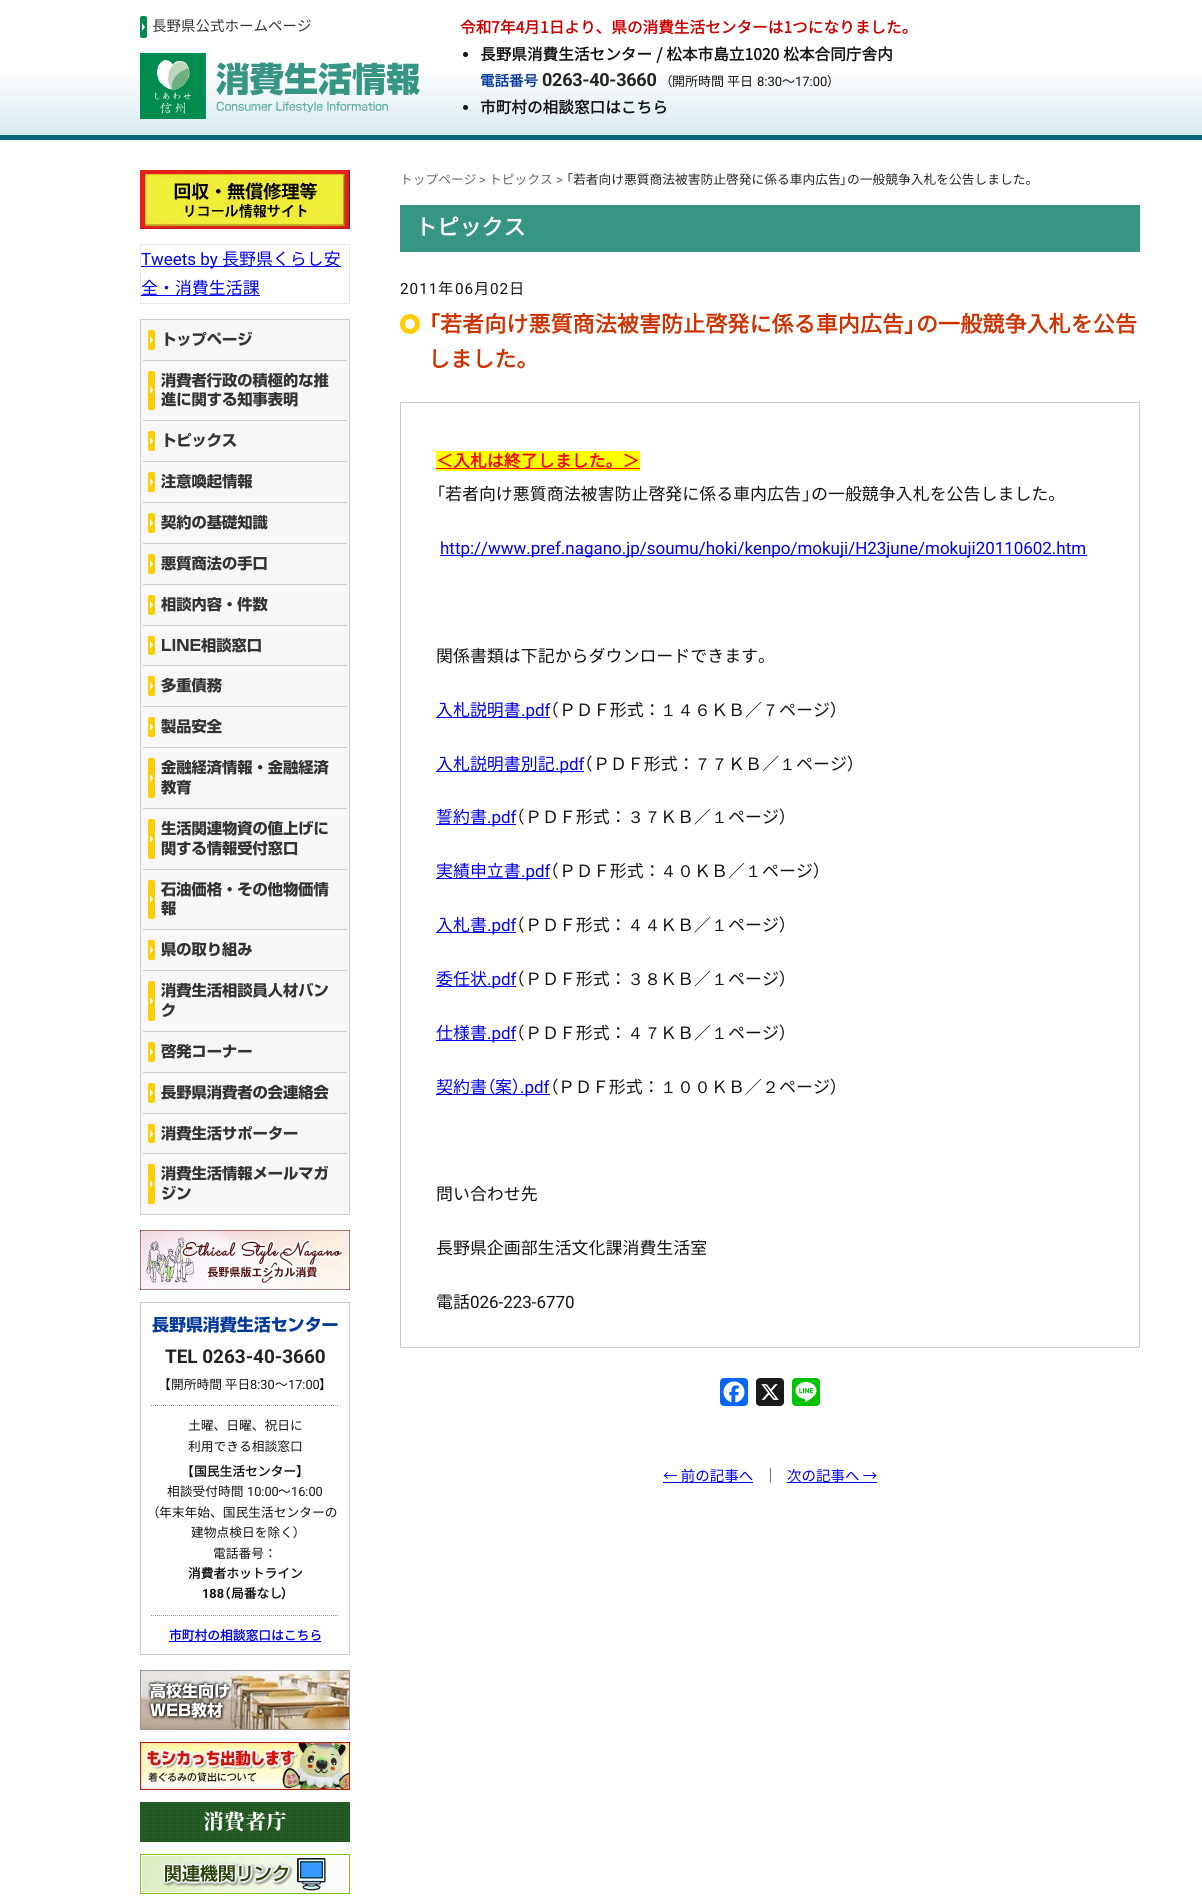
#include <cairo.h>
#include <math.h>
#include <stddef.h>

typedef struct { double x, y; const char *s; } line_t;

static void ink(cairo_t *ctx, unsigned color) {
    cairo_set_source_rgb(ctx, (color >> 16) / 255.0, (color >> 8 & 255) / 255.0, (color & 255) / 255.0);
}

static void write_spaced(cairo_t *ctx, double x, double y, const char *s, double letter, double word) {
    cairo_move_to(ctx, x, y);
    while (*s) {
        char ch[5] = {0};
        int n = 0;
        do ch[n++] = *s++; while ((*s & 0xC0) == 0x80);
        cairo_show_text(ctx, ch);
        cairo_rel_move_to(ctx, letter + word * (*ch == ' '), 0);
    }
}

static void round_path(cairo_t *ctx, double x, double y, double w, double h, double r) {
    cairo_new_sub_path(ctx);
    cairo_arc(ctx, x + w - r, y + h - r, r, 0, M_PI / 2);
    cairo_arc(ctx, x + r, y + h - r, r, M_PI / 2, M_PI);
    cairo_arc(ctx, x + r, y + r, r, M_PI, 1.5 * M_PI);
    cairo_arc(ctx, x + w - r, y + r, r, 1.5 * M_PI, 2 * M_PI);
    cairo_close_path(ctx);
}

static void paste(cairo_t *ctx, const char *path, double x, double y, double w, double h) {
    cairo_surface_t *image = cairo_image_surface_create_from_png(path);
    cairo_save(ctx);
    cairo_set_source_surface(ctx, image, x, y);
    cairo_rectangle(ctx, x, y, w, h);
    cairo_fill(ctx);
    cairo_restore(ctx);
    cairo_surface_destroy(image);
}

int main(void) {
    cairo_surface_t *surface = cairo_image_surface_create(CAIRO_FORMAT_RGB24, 1202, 1900);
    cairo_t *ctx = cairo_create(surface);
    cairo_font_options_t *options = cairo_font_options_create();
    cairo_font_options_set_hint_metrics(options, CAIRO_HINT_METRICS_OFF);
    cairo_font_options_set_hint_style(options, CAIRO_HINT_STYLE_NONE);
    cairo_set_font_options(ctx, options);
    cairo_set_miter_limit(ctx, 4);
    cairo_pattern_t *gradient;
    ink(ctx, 0xFFFFFF);
    cairo_paint(ctx);
    gradient = cairo_pattern_create_linear(640, 0, 640, 135);
    cairo_pattern_add_color_stop_rgba(gradient, 0.5, 1, 1, 1, 1);
    cairo_pattern_add_color_stop_rgba(gradient, 1, 0.855, 0.914, 0.937, 1);
    cairo_set_source(ctx, gradient);
    cairo_pattern_destroy(gradient);
    cairo_rectangle(ctx, 0, 72, 1202, 63);
    cairo_fill(ctx);
    ink(ctx, 0x086574);
    cairo_rectangle(ctx, 0, 135, 1202, 5);
    cairo_fill(ctx);
    ink(ctx, 0x008B4F);
    round_path(ctx, 140, 16, 7, 22, 2);
    cairo_fill(ctx);
    cairo_select_font_face(ctx, "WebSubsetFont", CAIRO_FONT_SLANT_NORMAL, CAIRO_FONT_WEIGHT_NORMAL);
    cairo_set_font_size(ctx, 14.5);
    ink(ctx, 0x333333);
    cairo_move_to(ctx, 152, 31);
    cairo_show_text(ctx, "長野県公式ホームページ");
    ink(ctx, 0xFFFFFF);
    cairo_new_path(ctx);
    cairo_move_to(ctx, 142, 31);
    cairo_line_to(ctx, 142, 23);
    cairo_line_to(ctx, 145, 27);
    cairo_close_path(ctx);
    cairo_fill(ctx);
    paste(ctx, "media/1.png", 140, 53, 280, 66);
    cairo_select_font_face(ctx, "WebSubsetFont", CAIRO_FONT_SLANT_NORMAL, CAIRO_FONT_WEIGHT_BOLD);
    cairo_set_font_size(ctx, 15.65);
    ink(ctx, 0xCC0000);
    cairo_move_to(ctx, 460, 33);
    cairo_show_text(ctx, "令和7年4月1日より、県の消費生活センターは1つになりました。");
    ink(ctx, 0x111111);
    cairo_new_path(ctx);
    cairo_arc(ctx, 465.5, 54.5, 2.5, 0, 2 * M_PI);
    cairo_fill(ctx);
    write_spaced(ctx, 480, 60, "長野県消費生活センター / 松本市島立1020 松本合同庁舎内", 0, 0.5);
    cairo_set_font_size(ctx, 14.5);
    ink(ctx, 0x05399B);
    cairo_move_to(ctx, 480, 86);
    cairo_show_text(ctx, "電話番号");
    cairo_select_font_face(ctx, "Roboto", CAIRO_FONT_SLANT_NORMAL, CAIRO_FONT_WEIGHT_BOLD);
    cairo_set_font_size(ctx, 18);
    ink(ctx, 0x222222);
    write_spaced(ctx, 542, 86, "0263-40-3660", -0.25, 0);
    cairo_select_font_face(ctx, "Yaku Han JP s", CAIRO_FONT_SLANT_NORMAL, CAIRO_FONT_WEIGHT_NORMAL);
    cairo_set_font_size(ctx, 13);
    ink(ctx, 0x111111);
    cairo_move_to(ctx, 666, 86);
    cairo_show_text(ctx, "（");
    cairo_select_font_face(ctx, "WebSubsetFont", CAIRO_FONT_SLANT_NORMAL, CAIRO_FONT_WEIGHT_NORMAL);
    cairo_move_to(ctx, 672, 86);
    cairo_show_text(ctx, "開所時間 平日");
    cairo_select_font_face(ctx, "Roboto", CAIRO_FONT_SLANT_NORMAL, CAIRO_FONT_WEIGHT_NORMAL);
    cairo_move_to(ctx, 757, 86);
    cairo_show_text(ctx, "8:30");
    cairo_select_font_face(ctx, "WebSubsetFont", CAIRO_FONT_SLANT_NORMAL, CAIRO_FONT_WEIGHT_NORMAL);
    cairo_move_to(ctx, 782, 86);
    cairo_show_text(ctx, "〜");
    cairo_select_font_face(ctx, "Roboto", CAIRO_FONT_SLANT_NORMAL, CAIRO_FONT_WEIGHT_NORMAL);
    cairo_move_to(ctx, 795, 86);
    cairo_show_text(ctx, "17:00");
    cairo_select_font_face(ctx, "Yaku Han JP s", CAIRO_FONT_SLANT_NORMAL, CAIRO_FONT_WEIGHT_NORMAL);
    cairo_move_to(ctx, 827, 86);
    cairo_show_text(ctx, "）");
    cairo_new_path(ctx);
    cairo_arc(ctx, 465.5, 107.5, 2.5, 0, 2 * M_PI);
    cairo_fill(ctx);
    cairo_select_font_face(ctx, "WebSubsetFont", CAIRO_FONT_SLANT_NORMAL, CAIRO_FONT_WEIGHT_BOLD);
    cairo_set_font_size(ctx, 15.65);
    cairo_move_to(ctx, 480, 113);
    cairo_show_text(ctx, "市町村の相談窓口はこちら");
    paste(ctx, "media/2.png", 140, 170, 210, 59);
    cairo_rectangle(ctx, 140.5, 244.5, 209, 59);
    ink(ctx, 0xE2E8EC);
    cairo_set_line_width(ctx, 1);
    cairo_stroke(ctx);
    ink(ctx, 0x0000EE);
    cairo_rectangle(ctx, 141, 266, 200, 1);
    cairo_fill(ctx);
    cairo_select_font_face(ctx, "Roboto", CAIRO_FONT_SLANT_NORMAL, CAIRO_FONT_WEIGHT_NORMAL);
    cairo_set_font_size(ctx, 16.95);
    cairo_move_to(ctx, 141, 265);
    cairo_show_text(ctx, "Tweets by");
    cairo_select_font_face(ctx, "WebSubsetFont", CAIRO_FONT_SLANT_NORMAL, CAIRO_FONT_WEIGHT_NORMAL);
    cairo_move_to(ctx, 222, 265);
    cairo_show_text(ctx, "長野県くらし安");
    cairo_rectangle(ctx, 141, 295, 119, 1);
    cairo_fill(ctx);
    cairo_move_to(ctx, 141, 294);
    cairo_show_text(ctx, "全・消費生活課");
    ink(ctx, 0xF7F7F7);
    cairo_rectangle(ctx, 140.5, 319.5, 209, 895);
    cairo_fill_preserve(ctx);
    ink(ctx, 0xCCCCCC);
    cairo_stroke(ctx);
    cairo_rectangle(ctx, 143, 360, 204, 1);
    cairo_fill(ctx);
    ink(ctx, 0xFFCC00);
    round_path(ctx, 148, 330, 7, 20, 2);
    cairo_fill(ctx);
    cairo_select_font_face(ctx, "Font", CAIRO_FONT_SLANT_NORMAL, CAIRO_FONT_WEIGHT_BOLD);
    cairo_set_font_size(ctx, 15.25);
    ink(ctx, 0x333333);
    cairo_move_to(ctx, 161, 345);
    cairo_show_text(ctx, "トップページ");
    ink(ctx, 0xFFFFFF);
    cairo_new_path(ctx);
    cairo_move_to(ctx, 150, 344);
    cairo_line_to(ctx, 150, 336);
    cairo_line_to(ctx, 153, 340);
    cairo_close_path(ctx);
    cairo_fill(ctx);
    ink(ctx, 0xCCCCCC);
    cairo_rectangle(ctx, 143, 420, 204, 1);
    cairo_fill(ctx);
    ink(ctx, 0xFFCC00);
    round_path(ctx, 148, 371, 7, 39, 2);
    cairo_fill(ctx);
    ink(ctx, 0x333333);
    cairo_move_to(ctx, 161, 386);
    cairo_show_text(ctx, "消費者行政の積極的な推");
    ink(ctx, 0xFFFFFF);
    cairo_new_path(ctx);
    cairo_move_to(ctx, 150, 394);
    cairo_line_to(ctx, 150, 386);
    cairo_line_to(ctx, 153, 390);
    cairo_close_path(ctx);
    cairo_fill(ctx);
    ink(ctx, 0x333333);
    cairo_move_to(ctx, 161, 405);
    cairo_show_text(ctx, "進に関する知事表明");
    ink(ctx, 0xCCCCCC);
    cairo_rectangle(ctx, 143, 461, 204, 1);
    cairo_fill(ctx);
    ink(ctx, 0xFFCC00);
    round_path(ctx, 148, 431, 7, 20, 2);
    cairo_fill(ctx);
    ink(ctx, 0x333333);
    cairo_move_to(ctx, 161, 446);
    cairo_show_text(ctx, "トピックス");
    ink(ctx, 0xFFFFFF);
    cairo_new_path(ctx);
    cairo_move_to(ctx, 150, 445);
    cairo_line_to(ctx, 150, 437);
    cairo_line_to(ctx, 153, 441);
    cairo_close_path(ctx);
    cairo_fill(ctx);
    ink(ctx, 0xCCCCCC);
    cairo_rectangle(ctx, 143, 502, 204, 1);
    cairo_fill(ctx);
    ink(ctx, 0xFFCC00);
    round_path(ctx, 148, 472, 7, 20, 2);
    cairo_fill(ctx);
    ink(ctx, 0x333333);
    cairo_move_to(ctx, 161, 487);
    cairo_show_text(ctx, "注意喚起情報");
    ink(ctx, 0xFFFFFF);
    cairo_new_path(ctx);
    cairo_move_to(ctx, 150, 486);
    cairo_line_to(ctx, 150, 478);
    cairo_line_to(ctx, 153, 482);
    cairo_close_path(ctx);
    cairo_fill(ctx);
    ink(ctx, 0xCCCCCC);
    cairo_rectangle(ctx, 143, 543, 204, 1);
    cairo_fill(ctx);
    ink(ctx, 0xFFCC00);
    round_path(ctx, 148, 513, 7, 20, 2);
    cairo_fill(ctx);
    ink(ctx, 0x333333);
    cairo_move_to(ctx, 161, 528);
    cairo_show_text(ctx, "契約の基礎知識");
    ink(ctx, 0xFFFFFF);
    cairo_new_path(ctx);
    cairo_move_to(ctx, 150, 527);
    cairo_line_to(ctx, 150, 519);
    cairo_line_to(ctx, 153, 523);
    cairo_close_path(ctx);
    cairo_fill(ctx);
    ink(ctx, 0xCCCCCC);
    cairo_rectangle(ctx, 143, 584, 204, 1);
    cairo_fill(ctx);
    ink(ctx, 0xFFCC00);
    round_path(ctx, 148, 554, 7, 20, 2);
    cairo_fill(ctx);
    ink(ctx, 0x333333);
    cairo_move_to(ctx, 161, 569);
    cairo_show_text(ctx, "悪質商法の手口");
    ink(ctx, 0xFFFFFF);
    cairo_new_path(ctx);
    cairo_move_to(ctx, 150, 568);
    cairo_line_to(ctx, 150, 560);
    cairo_line_to(ctx, 153, 564);
    cairo_close_path(ctx);
    cairo_fill(ctx);
    ink(ctx, 0xCCCCCC);
    cairo_rectangle(ctx, 143, 625, 204, 1);
    cairo_fill(ctx);
    ink(ctx, 0xFFCC00);
    round_path(ctx, 148, 595, 7, 20, 2);
    cairo_fill(ctx);
    ink(ctx, 0x333333);
    cairo_move_to(ctx, 161, 610);
    cairo_show_text(ctx, "相談内容・件数");
    ink(ctx, 0xFFFFFF);
    cairo_new_path(ctx);
    cairo_move_to(ctx, 150, 609);
    cairo_line_to(ctx, 150, 601);
    cairo_line_to(ctx, 153, 605);
    cairo_close_path(ctx);
    cairo_fill(ctx);
    ink(ctx, 0xCCCCCC);
    cairo_rectangle(ctx, 143, 665, 204, 1);
    cairo_fill(ctx);
    ink(ctx, 0xFFCC00);
    round_path(ctx, 148, 636, 7, 19, 2);
    cairo_fill(ctx);
    ink(ctx, 0x333333);
    cairo_move_to(ctx, 161, 651);
    cairo_show_text(ctx, "LINE相談窓口");
    ink(ctx, 0xFFFFFF);
    cairo_new_path(ctx);
    cairo_move_to(ctx, 150, 649);
    cairo_line_to(ctx, 150, 641);
    cairo_line_to(ctx, 153, 645);
    cairo_close_path(ctx);
    cairo_fill(ctx);
    ink(ctx, 0xCCCCCC);
    cairo_rectangle(ctx, 143, 706, 204, 1);
    cairo_fill(ctx);
    ink(ctx, 0xFFCC00);
    round_path(ctx, 148, 676, 7, 20, 2);
    cairo_fill(ctx);
    ink(ctx, 0x333333);
    cairo_move_to(ctx, 161, 691);
    cairo_show_text(ctx, "多重債務");
    ink(ctx, 0xFFFFFF);
    cairo_new_path(ctx);
    cairo_move_to(ctx, 150, 690);
    cairo_line_to(ctx, 150, 682);
    cairo_line_to(ctx, 153, 686);
    cairo_close_path(ctx);
    cairo_fill(ctx);
    ink(ctx, 0xCCCCCC);
    cairo_rectangle(ctx, 143, 747, 204, 1);
    cairo_fill(ctx);
    ink(ctx, 0xFFCC00);
    round_path(ctx, 148, 717, 7, 20, 2);
    cairo_fill(ctx);
    ink(ctx, 0x333333);
    cairo_move_to(ctx, 161, 732);
    cairo_show_text(ctx, "製品安全");
    ink(ctx, 0xFFFFFF);
    cairo_new_path(ctx);
    cairo_move_to(ctx, 150, 731);
    cairo_line_to(ctx, 150, 723);
    cairo_line_to(ctx, 153, 727);
    cairo_close_path(ctx);
    cairo_fill(ctx);
    ink(ctx, 0xCCCCCC);
    cairo_rectangle(ctx, 143, 808, 204, 1);
    cairo_fill(ctx);
    ink(ctx, 0xFFCC00);
    round_path(ctx, 148, 758, 7, 40, 2);
    cairo_fill(ctx);
    ink(ctx, 0x333333);
    cairo_move_to(ctx, 161, 773);
    cairo_show_text(ctx, "金融経済情報・金融経済");
    ink(ctx, 0xFFFFFF);
    cairo_new_path(ctx);
    cairo_move_to(ctx, 150, 782);
    cairo_line_to(ctx, 150, 774);
    cairo_line_to(ctx, 153, 778);
    cairo_close_path(ctx);
    cairo_fill(ctx);
    ink(ctx, 0x333333);
    cairo_move_to(ctx, 161, 793);
    cairo_show_text(ctx, "教育");
    ink(ctx, 0xCCCCCC);
    cairo_rectangle(ctx, 143, 869, 204, 1);
    cairo_fill(ctx);
    ink(ctx, 0xFFCC00);
    round_path(ctx, 148, 819, 7, 40, 2);
    cairo_fill(ctx);
    ink(ctx, 0x333333);
    cairo_move_to(ctx, 161, 834);
    cairo_show_text(ctx, "生活関連物資の値上げに");
    ink(ctx, 0xFFFFFF);
    cairo_new_path(ctx);
    cairo_move_to(ctx, 150, 843);
    cairo_line_to(ctx, 150, 835);
    cairo_line_to(ctx, 153, 839);
    cairo_close_path(ctx);
    cairo_fill(ctx);
    ink(ctx, 0x333333);
    cairo_move_to(ctx, 161, 854);
    cairo_show_text(ctx, "関する情報受付窓口");
    ink(ctx, 0xCCCCCC);
    cairo_rectangle(ctx, 143, 929, 204, 1);
    cairo_fill(ctx);
    ink(ctx, 0xFFCC00);
    round_path(ctx, 148, 880, 7, 39, 2);
    cairo_fill(ctx);
    ink(ctx, 0x333333);
    cairo_move_to(ctx, 161, 895);
    cairo_show_text(ctx, "石油価格・その他物価情");
    ink(ctx, 0xFFFFFF);
    cairo_new_path(ctx);
    cairo_move_to(ctx, 150, 903);
    cairo_line_to(ctx, 150, 895);
    cairo_line_to(ctx, 153, 899);
    cairo_close_path(ctx);
    cairo_fill(ctx);
    ink(ctx, 0x333333);
    cairo_move_to(ctx, 161, 914);
    cairo_show_text(ctx, "報");
    ink(ctx, 0xCCCCCC);
    cairo_rectangle(ctx, 143, 970, 204, 1);
    cairo_fill(ctx);
    ink(ctx, 0xFFCC00);
    round_path(ctx, 148, 940, 7, 20, 2);
    cairo_fill(ctx);
    ink(ctx, 0x333333);
    cairo_move_to(ctx, 161, 955);
    cairo_show_text(ctx, "県の取り組み");
    ink(ctx, 0xFFFFFF);
    cairo_new_path(ctx);
    cairo_move_to(ctx, 150, 954);
    cairo_line_to(ctx, 150, 946);
    cairo_line_to(ctx, 153, 950);
    cairo_close_path(ctx);
    cairo_fill(ctx);
    ink(ctx, 0xCCCCCC);
    cairo_rectangle(ctx, 143, 1031, 204, 1);
    cairo_fill(ctx);
    ink(ctx, 0xFFCC00);
    round_path(ctx, 148, 981, 7, 40, 2);
    cairo_fill(ctx);
    ink(ctx, 0x333333);
    cairo_move_to(ctx, 161, 996);
    cairo_show_text(ctx, "消費生活相談員人材バン");
    ink(ctx, 0xFFFFFF);
    cairo_new_path(ctx);
    cairo_move_to(ctx, 150, 1005);
    cairo_line_to(ctx, 150, 997);
    cairo_line_to(ctx, 153, 1001);
    cairo_close_path(ctx);
    cairo_fill(ctx);
    ink(ctx, 0x333333);
    cairo_move_to(ctx, 161, 1016);
    cairo_show_text(ctx, "ク");
    ink(ctx, 0xCCCCCC);
    cairo_rectangle(ctx, 143, 1072, 204, 1);
    cairo_fill(ctx);
    ink(ctx, 0xFFCC00);
    round_path(ctx, 148, 1042, 7, 20, 2);
    cairo_fill(ctx);
    ink(ctx, 0x333333);
    cairo_move_to(ctx, 161, 1057);
    cairo_show_text(ctx, "啓発コーナー");
    ink(ctx, 0xFFFFFF);
    cairo_new_path(ctx);
    cairo_move_to(ctx, 150, 1056);
    cairo_line_to(ctx, 150, 1048);
    cairo_line_to(ctx, 153, 1052);
    cairo_close_path(ctx);
    cairo_fill(ctx);
    ink(ctx, 0xCCCCCC);
    cairo_rectangle(ctx, 143, 1113, 204, 1);
    cairo_fill(ctx);
    ink(ctx, 0xFFCC00);
    round_path(ctx, 148, 1083, 7, 20, 2);
    cairo_fill(ctx);
    ink(ctx, 0x333333);
    cairo_move_to(ctx, 161, 1098);
    cairo_show_text(ctx, "長野県消費者の会連絡会");
    ink(ctx, 0xFFFFFF);
    cairo_new_path(ctx);
    cairo_move_to(ctx, 150, 1097);
    cairo_line_to(ctx, 150, 1089);
    cairo_line_to(ctx, 153, 1093);
    cairo_close_path(ctx);
    cairo_fill(ctx);
    ink(ctx, 0xCCCCCC);
    cairo_rectangle(ctx, 143, 1153, 204, 1);
    cairo_fill(ctx);
    ink(ctx, 0xFFCC00);
    round_path(ctx, 148, 1124, 7, 19, 2);
    cairo_fill(ctx);
    ink(ctx, 0x333333);
    cairo_move_to(ctx, 161, 1139);
    cairo_show_text(ctx, "消費生活サポーター");
    ink(ctx, 0xFFFFFF);
    cairo_new_path(ctx);
    cairo_move_to(ctx, 150, 1138);
    cairo_line_to(ctx, 150, 1130);
    cairo_line_to(ctx, 153, 1134);
    cairo_close_path(ctx);
    cairo_fill(ctx);
    ink(ctx, 0xFFCC00);
    round_path(ctx, 148, 1164, 7, 40, 2);
    cairo_fill(ctx);
    ink(ctx, 0x333333);
    cairo_move_to(ctx, 161, 1179);
    cairo_show_text(ctx, "消費生活情報メールマガ");
    ink(ctx, 0xFFFFFF);
    cairo_new_path(ctx);
    cairo_move_to(ctx, 150, 1188);
    cairo_line_to(ctx, 150, 1180);
    cairo_line_to(ctx, 153, 1184);
    cairo_close_path(ctx);
    cairo_fill(ctx);
    ink(ctx, 0x333333);
    cairo_move_to(ctx, 161, 1199);
    cairo_show_text(ctx, "ジン");
    paste(ctx, "media/3.png", 140, 1230, 210, 60);
    cairo_rectangle(ctx, 140.5, 1302.5, 209, 352);
    ink(ctx, 0xCCCCCC);
    cairo_stroke(ctx);
    cairo_set_font_size(ctx, 16.95);
    ink(ctx, 0x05399B);
    cairo_move_to(ctx, 152, 1331);
    cairo_show_text(ctx, "長野県消費生活センター");
    cairo_select_font_face(ctx, "Roboto", CAIRO_FONT_SLANT_NORMAL, CAIRO_FONT_WEIGHT_BOLD);
    cairo_set_font_size(ctx, 18.9);
    ink(ctx, 0x222222);
    cairo_move_to(ctx, 165, 1363);
    cairo_show_text(ctx, "TEL 0263-40-3660");
    cairo_select_font_face(ctx, "Yaku Han JP s", CAIRO_FONT_SLANT_NORMAL, CAIRO_FONT_WEIGHT_NORMAL);
    cairo_set_font_size(ctx, 12.75);
    ink(ctx, 0x111111);
    cairo_move_to(ctx, 164, 1389);
    cairo_show_text(ctx, "【");
    cairo_select_font_face(ctx, "WebSubsetFont", CAIRO_FONT_SLANT_NORMAL, CAIRO_FONT_WEIGHT_NORMAL);
    cairo_move_to(ctx, 171, 1389);
    cairo_show_text(ctx, "開所時間 平日");
    cairo_select_font_face(ctx, "Roboto", CAIRO_FONT_SLANT_NORMAL, CAIRO_FONT_WEIGHT_NORMAL);
    cairo_move_to(ctx, 250, 1389);
    cairo_show_text(ctx, "8:30");
    cairo_select_font_face(ctx, "WebSubsetFont", CAIRO_FONT_SLANT_NORMAL, CAIRO_FONT_WEIGHT_NORMAL);
    cairo_move_to(ctx, 275, 1389);
    cairo_show_text(ctx, "〜");
    cairo_select_font_face(ctx, "Roboto", CAIRO_FONT_SLANT_NORMAL, CAIRO_FONT_WEIGHT_NORMAL);
    cairo_move_to(ctx, 288, 1389);
    cairo_show_text(ctx, "17:00");
    cairo_select_font_face(ctx, "Yaku Han JP s", CAIRO_FONT_SLANT_NORMAL, CAIRO_FONT_WEIGHT_NORMAL);
    cairo_move_to(ctx, 319, 1389);
    cairo_show_text(ctx, "】");
    cairo_new_path(ctx);
    cairo_move_to(ctx, 151, 1405.5);
    cairo_line_to(ctx, 339, 1405.5);
    ink(ctx, 0x999999);
    cairo_set_dash(ctx, (double[]){1, 1}, 2, 0);
    cairo_stroke(ctx);
    cairo_select_font_face(ctx, "WebSubsetFont", CAIRO_FONT_SLANT_NORMAL, CAIRO_FONT_WEIGHT_NORMAL);
    ink(ctx, 0x111111);
    cairo_move_to(ctx, 188, 1430);
    cairo_show_text(ctx, "土曜、日曜、祝日に");
    cairo_move_to(ctx, 188, 1451);
    cairo_show_text(ctx, "利用できる相談窓口");
    cairo_select_font_face(ctx, "Yaku Han JP s", CAIRO_FONT_SLANT_NORMAL, CAIRO_FONT_WEIGHT_BOLD);
    cairo_move_to(ctx, 187, 1476);
    cairo_show_text(ctx, "【");
    cairo_select_font_face(ctx, "WebSubsetFont", CAIRO_FONT_SLANT_NORMAL, CAIRO_FONT_WEIGHT_BOLD);
    cairo_move_to(ctx, 194, 1476);
    cairo_show_text(ctx, "国民生活センター");
    cairo_select_font_face(ctx, "Yaku Han JP s", CAIRO_FONT_SLANT_NORMAL, CAIRO_FONT_WEIGHT_BOLD);
    cairo_move_to(ctx, 296, 1476);
    cairo_show_text(ctx, "】");
    cairo_select_font_face(ctx, "WebSubsetFont", CAIRO_FONT_SLANT_NORMAL, CAIRO_FONT_WEIGHT_NORMAL);
    cairo_move_to(ctx, 167, 1496);
    cairo_show_text(ctx, "相談受付時間");
    cairo_select_font_face(ctx, "Roboto", CAIRO_FONT_SLANT_NORMAL, CAIRO_FONT_WEIGHT_NORMAL);
    cairo_move_to(ctx, 247, 1496);
    cairo_show_text(ctx, "10:00");
    cairo_select_font_face(ctx, "WebSubsetFont", CAIRO_FONT_SLANT_NORMAL, CAIRO_FONT_WEIGHT_NORMAL);
    cairo_move_to(ctx, 278, 1496);
    cairo_show_text(ctx, "〜");
    cairo_select_font_face(ctx, "Roboto", CAIRO_FONT_SLANT_NORMAL, CAIRO_FONT_WEIGHT_NORMAL);
    cairo_move_to(ctx, 291, 1496);
    cairo_show_text(ctx, "16:00");
    cairo_select_font_face(ctx, "Yaku Han JP s", CAIRO_FONT_SLANT_NORMAL, CAIRO_FONT_WEIGHT_NORMAL);
    cairo_move_to(ctx, 153, 1517);
    cairo_show_text(ctx, "（");
    cairo_select_font_face(ctx, "WebSubsetFont", CAIRO_FONT_SLANT_NORMAL, CAIRO_FONT_WEIGHT_NORMAL);
    cairo_move_to(ctx, 159, 1517);
    cairo_show_text(ctx, "年末年始、国民生活センターの");
    cairo_move_to(ctx, 191, 1537);
    cairo_show_text(ctx, "建物点検日を除く");
    cairo_select_font_face(ctx, "Yaku Han JP s", CAIRO_FONT_SLANT_NORMAL, CAIRO_FONT_WEIGHT_NORMAL);
    cairo_move_to(ctx, 293, 1537);
    cairo_show_text(ctx, "）");
    cairo_select_font_face(ctx, "WebSubsetFont", CAIRO_FONT_SLANT_NORMAL, CAIRO_FONT_WEIGHT_NORMAL);
    cairo_move_to(ctx, 213, 1558);
    cairo_show_text(ctx, "電話番号：");
    cairo_select_font_face(ctx, "WebSubsetFont", CAIRO_FONT_SLANT_NORMAL, CAIRO_FONT_WEIGHT_BOLD);
    cairo_move_to(ctx, 188, 1578);
    cairo_show_text(ctx, "消費者ホットライン");
    cairo_select_font_face(ctx, "Roboto", CAIRO_FONT_SLANT_NORMAL, CAIRO_FONT_WEIGHT_BOLD);
    cairo_move_to(ctx, 202, 1598);
    cairo_show_text(ctx, "188");
    cairo_select_font_face(ctx, "Yaku Han JP s", CAIRO_FONT_SLANT_NORMAL, CAIRO_FONT_WEIGHT_BOLD);
    cairo_move_to(ctx, 224, 1598);
    cairo_show_text(ctx, "（");
    cairo_select_font_face(ctx, "WebSubsetFont", CAIRO_FONT_SLANT_NORMAL, CAIRO_FONT_WEIGHT_BOLD);
    cairo_move_to(ctx, 231, 1598);
    cairo_show_text(ctx, "局番なし");
    cairo_select_font_face(ctx, "Yaku Han JP s", CAIRO_FONT_SLANT_NORMAL, CAIRO_FONT_WEIGHT_BOLD);
    cairo_move_to(ctx, 281, 1598);
    cairo_show_text(ctx, "）");
    cairo_new_path(ctx);
    cairo_move_to(ctx, 151, 1615.5);
    cairo_line_to(ctx, 339, 1615.5);
    ink(ctx, 0x999999);
    cairo_stroke(ctx);
    cairo_select_font_face(ctx, "WebSubsetFont", CAIRO_FONT_SLANT_NORMAL, CAIRO_FONT_WEIGHT_BOLD);
    ink(ctx, 0x0000EE);
    cairo_move_to(ctx, 169, 1640);
    cairo_show_text(ctx, "市町村の相談窓口はこちら");
    cairo_rectangle(ctx, 169, 1641, 152, 1);
    cairo_fill(ctx);
    paste(ctx, "media/4.png", 140, 1670, 210, 60);
    paste(ctx, "media/5.png", 140, 1742, 210, 48);
    paste(ctx, "media/6.png", 140, 1802, 210, 40);
    paste(ctx, "media/7.png", 140, 1854, 210, 40);
    cairo_select_font_face(ctx, "WebSubsetFont", CAIRO_FONT_SLANT_NORMAL, CAIRO_FONT_WEIGHT_NORMAL);
    ink(ctx, 0x666666);
    cairo_move_to(ctx, 400, 184);
    cairo_show_text(ctx, "トップページ");
    cairo_select_font_face(ctx, "Roboto", CAIRO_FONT_SLANT_NORMAL, CAIRO_FONT_WEIGHT_NORMAL);
    cairo_move_to(ctx, 479, 184);
    cairo_show_text(ctx, ">");
    cairo_select_font_face(ctx, "WebSubsetFont", CAIRO_FONT_SLANT_NORMAL, CAIRO_FONT_WEIGHT_NORMAL);
    cairo_move_to(ctx, 489, 184);
    cairo_show_text(ctx, "トピックス");
    cairo_select_font_face(ctx, "Roboto", CAIRO_FONT_SLANT_NORMAL, CAIRO_FONT_WEIGHT_NORMAL);
    cairo_move_to(ctx, 556, 184);
    cairo_show_text(ctx, ">");
    cairo_select_font_face(ctx, "Yaku Han JP s", CAIRO_FONT_SLANT_NORMAL, CAIRO_FONT_WEIGHT_NORMAL);
    ink(ctx, 0x222222);
    cairo_move_to(ctx, 566, 184);
    cairo_show_text(ctx, "「");
    cairo_select_font_face(ctx, "WebSubsetFont", CAIRO_FONT_SLANT_NORMAL, CAIRO_FONT_WEIGHT_NORMAL);
    cairo_move_to(ctx, 573, 184);
    cairo_show_text(ctx, "若者向け悪質商法被害防止啓発に係る車内広告");
    cairo_select_font_face(ctx, "Yaku Han JP s", CAIRO_FONT_SLANT_NORMAL, CAIRO_FONT_WEIGHT_NORMAL);
    cairo_move_to(ctx, 840, 184);
    cairo_show_text(ctx, "」");
    cairo_select_font_face(ctx, "WebSubsetFont", CAIRO_FONT_SLANT_NORMAL, CAIRO_FONT_WEIGHT_NORMAL);
    cairo_move_to(ctx, 847, 184);
    cairo_show_text(ctx, "の一般競争入札を公告しました。");
    ink(ctx, 0x369683);
    cairo_rectangle(ctx, 400, 205, 740, 47);
    cairo_fill(ctx);
    cairo_select_font_face(ctx, "WebSubsetFont", CAIRO_FONT_SLANT_NORMAL, CAIRO_FONT_WEIGHT_BOLD);
    cairo_set_font_size(ctx, 22.1);
    ink(ctx, 0xFFFFFF);
    cairo_move_to(ctx, 415, 235);
    cairo_show_text(ctx, "トピックス");
    cairo_select_font_face(ctx, "Roboto", CAIRO_FONT_SLANT_NORMAL, CAIRO_FONT_WEIGHT_NORMAL);
    cairo_set_font_size(ctx, 15.25);
    ink(ctx, 0x111111);
    write_spaced(ctx, 400, 294, "2011", 1, 0);
    cairo_select_font_face(ctx, "WebSubsetFont", CAIRO_FONT_SLANT_NORMAL, CAIRO_FONT_WEIGHT_NORMAL);
    write_spaced(ctx, 438, 294, "年", 1, 0);
    cairo_select_font_face(ctx, "Roboto", CAIRO_FONT_SLANT_NORMAL, CAIRO_FONT_WEIGHT_NORMAL);
    write_spaced(ctx, 455, 294, "06", 1, 0);
    cairo_select_font_face(ctx, "WebSubsetFont", CAIRO_FONT_SLANT_NORMAL, CAIRO_FONT_WEIGHT_NORMAL);
    write_spaced(ctx, 474, 294, "月", 1, 0);
    cairo_select_font_face(ctx, "Roboto", CAIRO_FONT_SLANT_NORMAL, CAIRO_FONT_WEIGHT_NORMAL);
    write_spaced(ctx, 490, 294, "02", 1, 0);
    cairo_select_font_face(ctx, "WebSubsetFont", CAIRO_FONT_SLANT_NORMAL, CAIRO_FONT_WEIGHT_NORMAL);
    write_spaced(ctx, 509, 294, "日", 1, 0);
    cairo_new_path(ctx);
    cairo_arc(ctx, 410, 324, 7.5, 0, 2 * M_PI);
    ink(ctx, 0xFFCC00);
    cairo_set_line_width(ctx, 5);
    cairo_set_dash(ctx, NULL, 0, 0);
    cairo_stroke(ctx);
    cairo_select_font_face(ctx, "Yaku Han JP s", CAIRO_FONT_SLANT_NORMAL, CAIRO_FONT_WEIGHT_BOLD);
    cairo_set_font_size(ctx, 22.1);
    ink(ctx, 0xCC3300);
    cairo_move_to(ctx, 428, 332);
    cairo_show_text(ctx, "「");
    cairo_select_font_face(ctx, "WebSubsetFont", CAIRO_FONT_SLANT_NORMAL, CAIRO_FONT_WEIGHT_BOLD);
    cairo_move_to(ctx, 440, 332);
    cairo_show_text(ctx, "若者向け悪質商法被害防止啓発に係る車内広告");
    cairo_select_font_face(ctx, "Yaku Han JP s", CAIRO_FONT_SLANT_NORMAL, CAIRO_FONT_WEIGHT_BOLD);
    cairo_move_to(ctx, 904, 332);
    cairo_show_text(ctx, "」");
    cairo_select_font_face(ctx, "WebSubsetFont", CAIRO_FONT_SLANT_NORMAL, CAIRO_FONT_WEIGHT_BOLD);
    cairo_move_to(ctx, 916, 332);
    cairo_show_text(ctx, "の一般競争入札を公告");
    cairo_move_to(ctx, 428, 367);
    cairo_show_text(ctx, "しました。");
    cairo_rectangle(ctx, 400.5, 402.5, 739, 945);
    ink(ctx, 0xCCCCCC);
    cairo_set_line_width(ctx, 1);
    cairo_stroke(ctx);
    ink(ctx, 0xFFFF00);
    cairo_rectangle(ctx, 436, 451, 204, 20);
    cairo_fill(ctx);
    ink(ctx, 0xFF0000);
    cairo_rectangle(ctx, 436, 468, 204, 1);
    cairo_fill(ctx);
    cairo_set_font_size(ctx, 16.95);
    cairo_move_to(ctx, 436, 467);
    cairo_show_text(ctx, "＜入札は終了しました。＞");
    cairo_select_font_face(ctx, "Yaku Han JP s", CAIRO_FONT_SLANT_NORMAL, CAIRO_FONT_WEIGHT_NORMAL);
    ink(ctx, 0x111111);
    cairo_move_to(ctx, 436, 500);
    cairo_show_text(ctx, "「");
    cairo_select_font_face(ctx, "WebSubsetFont", CAIRO_FONT_SLANT_NORMAL, CAIRO_FONT_WEIGHT_NORMAL);
    cairo_move_to(ctx, 445, 500);
    cairo_show_text(ctx, "若者向け悪質商法被害防止啓発に係る車内広告");
    cairo_select_font_face(ctx, "Yaku Han JP s", CAIRO_FONT_SLANT_NORMAL, CAIRO_FONT_WEIGHT_NORMAL);
    cairo_move_to(ctx, 802, 500);
    cairo_show_text(ctx, "」");
    cairo_select_font_face(ctx, "WebSubsetFont", CAIRO_FONT_SLANT_NORMAL, CAIRO_FONT_WEIGHT_NORMAL);
    cairo_move_to(ctx, 811, 500);
    cairo_show_text(ctx, "の一般競争入札を公告しました。");
    ink(ctx, 0x0000EE);
    cairo_rectangle(ctx, 440, 555, 647, 1);
    cairo_fill(ctx);
    cairo_select_font_face(ctx, "Roboto", CAIRO_FONT_SLANT_NORMAL, CAIRO_FONT_WEIGHT_NORMAL);
    cairo_move_to(ctx, 440, 554);
    cairo_show_text(ctx, "http://www.pref.nagano.jp/soumu/hoki/kenpo/mokuji/H23june/mokuji20110602.htm");
    cairo_select_font_face(ctx, "WebSubsetFont", CAIRO_FONT_SLANT_NORMAL, CAIRO_FONT_WEIGHT_NORMAL);
    ink(ctx, 0x111111);
    cairo_move_to(ctx, 436, 662);
    cairo_show_text(ctx, "関係書類は下記からダウンロードできます。");
    ink(ctx, 0x0000EE);
    cairo_rectangle(ctx, 436, 717, 114, 1);
    cairo_fill(ctx);
    cairo_move_to(ctx, 436, 716);
    cairo_show_text(ctx, "入札説明書");
    cairo_select_font_face(ctx, "Roboto", CAIRO_FONT_SLANT_NORMAL, CAIRO_FONT_WEIGHT_NORMAL);
    cairo_move_to(ctx, 521, 716);
    cairo_show_text(ctx, ".pdf");
    cairo_select_font_face(ctx, "Yaku Han JP s", CAIRO_FONT_SLANT_NORMAL, CAIRO_FONT_WEIGHT_NORMAL);
    ink(ctx, 0x111111);
    cairo_move_to(ctx, 550, 716);
    cairo_show_text(ctx, "（");
    cairo_select_font_face(ctx, "WebSubsetFont", CAIRO_FONT_SLANT_NORMAL, CAIRO_FONT_WEIGHT_NORMAL);
    cairo_move_to(ctx, 559, 716);
    cairo_show_text(ctx, "ＰＤＦ形式：");
    cairo_select_font_face(ctx, "WenQuanYi Zen Hei Medium", CAIRO_FONT_SLANT_NORMAL, CAIRO_FONT_WEIGHT_NORMAL);
    cairo_move_to(ctx, 660, 716);
    cairo_show_text(ctx, "１４６");
    cairo_select_font_face(ctx, "WebSubsetFont", CAIRO_FONT_SLANT_NORMAL, CAIRO_FONT_WEIGHT_NORMAL);
    cairo_move_to(ctx, 711, 716);
    cairo_show_text(ctx, "ＫＢ／");
    cairo_select_font_face(ctx, "WenQuanYi Zen Hei Medium", CAIRO_FONT_SLANT_NORMAL, CAIRO_FONT_WEIGHT_NORMAL);
    cairo_move_to(ctx, 762, 716);
    cairo_show_text(ctx, "７");
    cairo_select_font_face(ctx, "WebSubsetFont", CAIRO_FONT_SLANT_NORMAL, CAIRO_FONT_WEIGHT_NORMAL);
    cairo_move_to(ctx, 779, 716);
    cairo_show_text(ctx, "ページ");
    cairo_select_font_face(ctx, "Yaku Han JP s", CAIRO_FONT_SLANT_NORMAL, CAIRO_FONT_WEIGHT_NORMAL);
    cairo_move_to(ctx, 830, 716);
    cairo_show_text(ctx, "）");
    ink(ctx, 0x0000EE);
    cairo_rectangle(ctx, 436, 771, 148, 1);
    cairo_fill(ctx);
    cairo_select_font_face(ctx, "WebSubsetFont", CAIRO_FONT_SLANT_NORMAL, CAIRO_FONT_WEIGHT_NORMAL);
    cairo_move_to(ctx, 436, 770);
    cairo_show_text(ctx, "入札説明書別記");
    cairo_select_font_face(ctx, "Roboto", CAIRO_FONT_SLANT_NORMAL, CAIRO_FONT_WEIGHT_NORMAL);
    cairo_move_to(ctx, 555, 770);
    cairo_show_text(ctx, ".pdf");
    cairo_select_font_face(ctx, "Yaku Han JP s", CAIRO_FONT_SLANT_NORMAL, CAIRO_FONT_WEIGHT_NORMAL);
    ink(ctx, 0x111111);
    cairo_move_to(ctx, 584, 770);
    cairo_show_text(ctx, "（");
    cairo_select_font_face(ctx, "WebSubsetFont", CAIRO_FONT_SLANT_NORMAL, CAIRO_FONT_WEIGHT_NORMAL);
    cairo_move_to(ctx, 593, 770);
    cairo_show_text(ctx, "ＰＤＦ形式：");
    cairo_select_font_face(ctx, "WenQuanYi Zen Hei Medium", CAIRO_FONT_SLANT_NORMAL, CAIRO_FONT_WEIGHT_NORMAL);
    cairo_move_to(ctx, 694, 770);
    cairo_show_text(ctx, "７７");
    cairo_select_font_face(ctx, "WebSubsetFont", CAIRO_FONT_SLANT_NORMAL, CAIRO_FONT_WEIGHT_NORMAL);
    cairo_move_to(ctx, 728, 770);
    cairo_show_text(ctx, "ＫＢ／");
    cairo_select_font_face(ctx, "WenQuanYi Zen Hei Medium", CAIRO_FONT_SLANT_NORMAL, CAIRO_FONT_WEIGHT_NORMAL);
    cairo_move_to(ctx, 779, 770);
    cairo_show_text(ctx, "１");
    cairo_select_font_face(ctx, "WebSubsetFont", CAIRO_FONT_SLANT_NORMAL, CAIRO_FONT_WEIGHT_NORMAL);
    cairo_move_to(ctx, 796, 770);
    cairo_show_text(ctx, "ページ");
    cairo_select_font_face(ctx, "Yaku Han JP s", CAIRO_FONT_SLANT_NORMAL, CAIRO_FONT_WEIGHT_NORMAL);
    cairo_move_to(ctx, 847, 770);
    cairo_show_text(ctx, "）");
    ink(ctx, 0x0000EE);
    cairo_rectangle(ctx, 436, 824, 80, 1);
    cairo_fill(ctx);
    cairo_select_font_face(ctx, "WebSubsetFont", CAIRO_FONT_SLANT_NORMAL, CAIRO_FONT_WEIGHT_NORMAL);
    cairo_move_to(ctx, 436, 823);
    cairo_show_text(ctx, "誓約書");
    cairo_select_font_face(ctx, "Roboto", CAIRO_FONT_SLANT_NORMAL, CAIRO_FONT_WEIGHT_NORMAL);
    cairo_move_to(ctx, 487, 823);
    cairo_show_text(ctx, ".pdf");
    cairo_select_font_face(ctx, "Yaku Han JP s", CAIRO_FONT_SLANT_NORMAL, CAIRO_FONT_WEIGHT_NORMAL);
    ink(ctx, 0x111111);
    cairo_move_to(ctx, 516, 823);
    cairo_show_text(ctx, "（");
    cairo_select_font_face(ctx, "WebSubsetFont", CAIRO_FONT_SLANT_NORMAL, CAIRO_FONT_WEIGHT_NORMAL);
    cairo_move_to(ctx, 525, 823);
    cairo_show_text(ctx, "ＰＤＦ形式：");
    cairo_select_font_face(ctx, "WenQuanYi Zen Hei Medium", CAIRO_FONT_SLANT_NORMAL, CAIRO_FONT_WEIGHT_NORMAL);
    cairo_move_to(ctx, 627, 823);
    cairo_show_text(ctx, "３７");
    cairo_select_font_face(ctx, "WebSubsetFont", CAIRO_FONT_SLANT_NORMAL, CAIRO_FONT_WEIGHT_NORMAL);
    cairo_move_to(ctx, 660, 823);
    cairo_show_text(ctx, "ＫＢ／");
    cairo_select_font_face(ctx, "WenQuanYi Zen Hei Medium", CAIRO_FONT_SLANT_NORMAL, CAIRO_FONT_WEIGHT_NORMAL);
    cairo_move_to(ctx, 711, 823);
    cairo_show_text(ctx, "１");
    cairo_select_font_face(ctx, "WebSubsetFont", CAIRO_FONT_SLANT_NORMAL, CAIRO_FONT_WEIGHT_NORMAL);
    cairo_move_to(ctx, 728, 823);
    cairo_show_text(ctx, "ページ");
    cairo_select_font_face(ctx, "Yaku Han JP s", CAIRO_FONT_SLANT_NORMAL, CAIRO_FONT_WEIGHT_NORMAL);
    cairo_move_to(ctx, 779, 823);
    cairo_show_text(ctx, "）");
    ink(ctx, 0x0000EE);
    cairo_rectangle(ctx, 436, 878, 114, 1);
    cairo_fill(ctx);
    cairo_select_font_face(ctx, "WebSubsetFont", CAIRO_FONT_SLANT_NORMAL, CAIRO_FONT_WEIGHT_NORMAL);
    cairo_move_to(ctx, 436, 877);
    cairo_show_text(ctx, "実績申立書");
    cairo_select_font_face(ctx, "Roboto", CAIRO_FONT_SLANT_NORMAL, CAIRO_FONT_WEIGHT_NORMAL);
    cairo_move_to(ctx, 521, 877);
    cairo_show_text(ctx, ".pdf");
    cairo_select_font_face(ctx, "Yaku Han JP s", CAIRO_FONT_SLANT_NORMAL, CAIRO_FONT_WEIGHT_NORMAL);
    ink(ctx, 0x111111);
    cairo_move_to(ctx, 550, 877);
    cairo_show_text(ctx, "（");
    cairo_select_font_face(ctx, "WebSubsetFont", CAIRO_FONT_SLANT_NORMAL, CAIRO_FONT_WEIGHT_NORMAL);
    cairo_move_to(ctx, 559, 877);
    cairo_show_text(ctx, "ＰＤＦ形式：");
    cairo_select_font_face(ctx, "WenQuanYi Zen Hei Medium", CAIRO_FONT_SLANT_NORMAL, CAIRO_FONT_WEIGHT_NORMAL);
    cairo_move_to(ctx, 660, 877);
    cairo_show_text(ctx, "４０");
    cairo_select_font_face(ctx, "WebSubsetFont", CAIRO_FONT_SLANT_NORMAL, CAIRO_FONT_WEIGHT_NORMAL);
    cairo_move_to(ctx, 694, 877);
    cairo_show_text(ctx, "ＫＢ／");
    cairo_select_font_face(ctx, "WenQuanYi Zen Hei Medium", CAIRO_FONT_SLANT_NORMAL, CAIRO_FONT_WEIGHT_NORMAL);
    cairo_move_to(ctx, 745, 877);
    cairo_show_text(ctx, "１");
    cairo_select_font_face(ctx, "WebSubsetFont", CAIRO_FONT_SLANT_NORMAL, CAIRO_FONT_WEIGHT_NORMAL);
    cairo_move_to(ctx, 762, 877);
    cairo_show_text(ctx, "ページ");
    cairo_select_font_face(ctx, "Yaku Han JP s", CAIRO_FONT_SLANT_NORMAL, CAIRO_FONT_WEIGHT_NORMAL);
    cairo_move_to(ctx, 813, 877);
    cairo_show_text(ctx, "）");
    ink(ctx, 0x0000EE);
    cairo_rectangle(ctx, 436, 932, 80, 1);
    cairo_fill(ctx);
    cairo_select_font_face(ctx, "WebSubsetFont", CAIRO_FONT_SLANT_NORMAL, CAIRO_FONT_WEIGHT_NORMAL);
    cairo_move_to(ctx, 436, 931);
    cairo_show_text(ctx, "入札書");
    cairo_select_font_face(ctx, "Roboto", CAIRO_FONT_SLANT_NORMAL, CAIRO_FONT_WEIGHT_NORMAL);
    cairo_move_to(ctx, 487, 931);
    cairo_show_text(ctx, ".pdf");
    cairo_select_font_face(ctx, "Yaku Han JP s", CAIRO_FONT_SLANT_NORMAL, CAIRO_FONT_WEIGHT_NORMAL);
    ink(ctx, 0x111111);
    cairo_move_to(ctx, 516, 931);
    cairo_show_text(ctx, "（");
    cairo_select_font_face(ctx, "WebSubsetFont", CAIRO_FONT_SLANT_NORMAL, CAIRO_FONT_WEIGHT_NORMAL);
    cairo_move_to(ctx, 525, 931);
    cairo_show_text(ctx, "ＰＤＦ形式：");
    cairo_select_font_face(ctx, "WenQuanYi Zen Hei Medium", CAIRO_FONT_SLANT_NORMAL, CAIRO_FONT_WEIGHT_NORMAL);
    cairo_move_to(ctx, 627, 931);
    cairo_show_text(ctx, "４４");
    cairo_select_font_face(ctx, "WebSubsetFont", CAIRO_FONT_SLANT_NORMAL, CAIRO_FONT_WEIGHT_NORMAL);
    cairo_move_to(ctx, 660, 931);
    cairo_show_text(ctx, "ＫＢ／");
    cairo_select_font_face(ctx, "WenQuanYi Zen Hei Medium", CAIRO_FONT_SLANT_NORMAL, CAIRO_FONT_WEIGHT_NORMAL);
    cairo_move_to(ctx, 711, 931);
    cairo_show_text(ctx, "１");
    cairo_select_font_face(ctx, "WebSubsetFont", CAIRO_FONT_SLANT_NORMAL, CAIRO_FONT_WEIGHT_NORMAL);
    cairo_move_to(ctx, 728, 931);
    cairo_show_text(ctx, "ページ");
    cairo_select_font_face(ctx, "Yaku Han JP s", CAIRO_FONT_SLANT_NORMAL, CAIRO_FONT_WEIGHT_NORMAL);
    cairo_move_to(ctx, 779, 931);
    cairo_show_text(ctx, "）");
    ink(ctx, 0x0000EE);
    cairo_rectangle(ctx, 436, 986, 80, 1);
    cairo_fill(ctx);
    cairo_select_font_face(ctx, "WebSubsetFont", CAIRO_FONT_SLANT_NORMAL, CAIRO_FONT_WEIGHT_NORMAL);
    cairo_move_to(ctx, 436, 985);
    cairo_show_text(ctx, "委任状");
    cairo_select_font_face(ctx, "Roboto", CAIRO_FONT_SLANT_NORMAL, CAIRO_FONT_WEIGHT_NORMAL);
    cairo_move_to(ctx, 487, 985);
    cairo_show_text(ctx, ".pdf");
    cairo_select_font_face(ctx, "Yaku Han JP s", CAIRO_FONT_SLANT_NORMAL, CAIRO_FONT_WEIGHT_NORMAL);
    ink(ctx, 0x111111);
    cairo_move_to(ctx, 516, 985);
    cairo_show_text(ctx, "（");
    cairo_select_font_face(ctx, "WebSubsetFont", CAIRO_FONT_SLANT_NORMAL, CAIRO_FONT_WEIGHT_NORMAL);
    cairo_move_to(ctx, 525, 985);
    cairo_show_text(ctx, "ＰＤＦ形式：");
    cairo_select_font_face(ctx, "WenQuanYi Zen Hei Medium", CAIRO_FONT_SLANT_NORMAL, CAIRO_FONT_WEIGHT_NORMAL);
    cairo_move_to(ctx, 627, 985);
    cairo_show_text(ctx, "３８");
    cairo_select_font_face(ctx, "WebSubsetFont", CAIRO_FONT_SLANT_NORMAL, CAIRO_FONT_WEIGHT_NORMAL);
    cairo_move_to(ctx, 660, 985);
    cairo_show_text(ctx, "ＫＢ／");
    cairo_select_font_face(ctx, "WenQuanYi Zen Hei Medium", CAIRO_FONT_SLANT_NORMAL, CAIRO_FONT_WEIGHT_NORMAL);
    cairo_move_to(ctx, 711, 985);
    cairo_show_text(ctx, "１");
    cairo_select_font_face(ctx, "WebSubsetFont", CAIRO_FONT_SLANT_NORMAL, CAIRO_FONT_WEIGHT_NORMAL);
    cairo_move_to(ctx, 728, 985);
    cairo_show_text(ctx, "ページ");
    cairo_select_font_face(ctx, "Yaku Han JP s", CAIRO_FONT_SLANT_NORMAL, CAIRO_FONT_WEIGHT_NORMAL);
    cairo_move_to(ctx, 779, 985);
    cairo_show_text(ctx, "）");
    ink(ctx, 0x0000EE);
    cairo_rectangle(ctx, 436, 1040, 80, 1);
    cairo_fill(ctx);
    cairo_select_font_face(ctx, "WebSubsetFont", CAIRO_FONT_SLANT_NORMAL, CAIRO_FONT_WEIGHT_NORMAL);
    cairo_move_to(ctx, 436, 1039);
    cairo_show_text(ctx, "仕様書");
    cairo_select_font_face(ctx, "Roboto", CAIRO_FONT_SLANT_NORMAL, CAIRO_FONT_WEIGHT_NORMAL);
    cairo_move_to(ctx, 487, 1039);
    cairo_show_text(ctx, ".pdf");
    cairo_select_font_face(ctx, "Yaku Han JP s", CAIRO_FONT_SLANT_NORMAL, CAIRO_FONT_WEIGHT_NORMAL);
    ink(ctx, 0x111111);
    cairo_move_to(ctx, 516, 1039);
    cairo_show_text(ctx, "（");
    cairo_select_font_face(ctx, "WebSubsetFont", CAIRO_FONT_SLANT_NORMAL, CAIRO_FONT_WEIGHT_NORMAL);
    cairo_move_to(ctx, 525, 1039);
    cairo_show_text(ctx, "ＰＤＦ形式：");
    cairo_select_font_face(ctx, "WenQuanYi Zen Hei Medium", CAIRO_FONT_SLANT_NORMAL, CAIRO_FONT_WEIGHT_NORMAL);
    cairo_move_to(ctx, 627, 1039);
    cairo_show_text(ctx, "４７");
    cairo_select_font_face(ctx, "WebSubsetFont", CAIRO_FONT_SLANT_NORMAL, CAIRO_FONT_WEIGHT_NORMAL);
    cairo_move_to(ctx, 660, 1039);
    cairo_show_text(ctx, "ＫＢ／");
    cairo_select_font_face(ctx, "WenQuanYi Zen Hei Medium", CAIRO_FONT_SLANT_NORMAL, CAIRO_FONT_WEIGHT_NORMAL);
    cairo_move_to(ctx, 711, 1039);
    cairo_show_text(ctx, "１");
    cairo_select_font_face(ctx, "WebSubsetFont", CAIRO_FONT_SLANT_NORMAL, CAIRO_FONT_WEIGHT_NORMAL);
    cairo_move_to(ctx, 728, 1039);
    cairo_show_text(ctx, "ページ");
    cairo_select_font_face(ctx, "Yaku Han JP s", CAIRO_FONT_SLANT_NORMAL, CAIRO_FONT_WEIGHT_NORMAL);
    cairo_move_to(ctx, 779, 1039);
    cairo_show_text(ctx, "）");
    ink(ctx, 0x0000EE);
    cairo_rectangle(ctx, 436, 1094, 114, 1);
    cairo_fill(ctx);
    cairo_select_font_face(ctx, "WebSubsetFont", CAIRO_FONT_SLANT_NORMAL, CAIRO_FONT_WEIGHT_NORMAL);
    cairo_move_to(ctx, 436, 1093);
    cairo_show_text(ctx, "契約書");
    cairo_select_font_face(ctx, "Yaku Han JP s", CAIRO_FONT_SLANT_NORMAL, CAIRO_FONT_WEIGHT_NORMAL);
    cairo_move_to(ctx, 487, 1093);
    cairo_show_text(ctx, "（");
    cairo_select_font_face(ctx, "WebSubsetFont", CAIRO_FONT_SLANT_NORMAL, CAIRO_FONT_WEIGHT_NORMAL);
    cairo_move_to(ctx, 495, 1093);
    cairo_show_text(ctx, "案");
    cairo_select_font_face(ctx, "Yaku Han JP s", CAIRO_FONT_SLANT_NORMAL, CAIRO_FONT_WEIGHT_NORMAL);
    cairo_move_to(ctx, 512, 1093);
    cairo_show_text(ctx, "）");
    cairo_select_font_face(ctx, "Roboto", CAIRO_FONT_SLANT_NORMAL, CAIRO_FONT_WEIGHT_NORMAL);
    cairo_move_to(ctx, 520, 1093);
    cairo_show_text(ctx, ".pdf");
    cairo_select_font_face(ctx, "Yaku Han JP s", CAIRO_FONT_SLANT_NORMAL, CAIRO_FONT_WEIGHT_NORMAL);
    ink(ctx, 0x111111);
    cairo_move_to(ctx, 550, 1093);
    cairo_show_text(ctx, "（");
    cairo_select_font_face(ctx, "WebSubsetFont", CAIRO_FONT_SLANT_NORMAL, CAIRO_FONT_WEIGHT_NORMAL);
    cairo_move_to(ctx, 558, 1093);
    cairo_show_text(ctx, "ＰＤＦ形式：");
    cairo_select_font_face(ctx, "WenQuanYi Zen Hei Medium", CAIRO_FONT_SLANT_NORMAL, CAIRO_FONT_WEIGHT_NORMAL);
    cairo_move_to(ctx, 660, 1093);
    cairo_show_text(ctx, "１００");
    cairo_select_font_face(ctx, "WebSubsetFont", CAIRO_FONT_SLANT_NORMAL, CAIRO_FONT_WEIGHT_NORMAL);
    cairo_move_to(ctx, 711, 1093);
    cairo_show_text(ctx, "ＫＢ／");
    cairo_select_font_face(ctx, "WenQuanYi Zen Hei Medium", CAIRO_FONT_SLANT_NORMAL, CAIRO_FONT_WEIGHT_NORMAL);
    cairo_move_to(ctx, 762, 1093);
    cairo_show_text(ctx, "２");
    cairo_select_font_face(ctx, "WebSubsetFont", CAIRO_FONT_SLANT_NORMAL, CAIRO_FONT_WEIGHT_NORMAL);
    cairo_move_to(ctx, 779, 1093);
    cairo_show_text(ctx, "ページ");
    cairo_select_font_face(ctx, "Yaku Han JP s", CAIRO_FONT_SLANT_NORMAL, CAIRO_FONT_WEIGHT_NORMAL);
    cairo_move_to(ctx, 830, 1093);
    cairo_show_text(ctx, "）");
    cairo_select_font_face(ctx, "WebSubsetFont", CAIRO_FONT_SLANT_NORMAL, CAIRO_FONT_WEIGHT_NORMAL);
    {
        static const line_t items[] = {
            {436, 1200, "問い合わせ先"},
            {436, 1254, "長野県企画部生活文化課消費生活室"},
            {436, 1308, "電話"},
        };
        for (size_t i = 0; i < sizeof items / sizeof *items; i++) {
            cairo_move_to(ctx, items[i].x, items[i].y);
            cairo_show_text(ctx, items[i].s);
        }
    }
    cairo_select_font_face(ctx, "Roboto", CAIRO_FONT_SLANT_NORMAL, CAIRO_FONT_WEIGHT_NORMAL);
    cairo_move_to(ctx, 470, 1308);
    cairo_show_text(ctx, "026-223-6770");
    ink(ctx, 0x0866FF);
    round_path(ctx, 720, 1378, 28, 28, 4);
    cairo_fill(ctx);
    paste(ctx, "media/8.png", 723, 1381, 22, 22);
    ink(ctx, 0x1A1A1A);
    round_path(ctx, 756, 1378, 28, 28, 4);
    cairo_fill(ctx);
    paste(ctx, "media/9.png", 761, 1384, 18, 16);
    ink(ctx, 0x00C300);
    round_path(ctx, 792, 1378, 28, 28, 4);
    cairo_fill(ctx);
    paste(ctx, "media/10.png", 795, 1382, 22, 20);
    ink(ctx, 0x0000EE);
    cairo_rectangle(ctx, 663, 1482, 90, 1);
    cairo_fill(ctx);
    cairo_select_font_face(ctx, "WebSubsetFont", CAIRO_FONT_SLANT_NORMAL, CAIRO_FONT_WEIGHT_NORMAL);
    cairo_set_font_size(ctx, 14.5);
    cairo_move_to(ctx, 663, 1481);
    cairo_show_text(ctx, "← 前の記事へ");
    ink(ctx, 0x111111);
    cairo_move_to(ctx, 763, 1481);
    cairo_show_text(ctx, "｜");
    ink(ctx, 0x0000EE);
    cairo_rectangle(ctx, 787, 1482, 90, 1);
    cairo_fill(ctx);
    cairo_move_to(ctx, 787, 1481);
    cairo_show_text(ctx, "次の記事へ →");
    cairo_surface_write_to_png(surface, "image.png");
    cairo_font_options_destroy(options);
    cairo_destroy(ctx);
    cairo_surface_destroy(surface);
    return 0;
}
